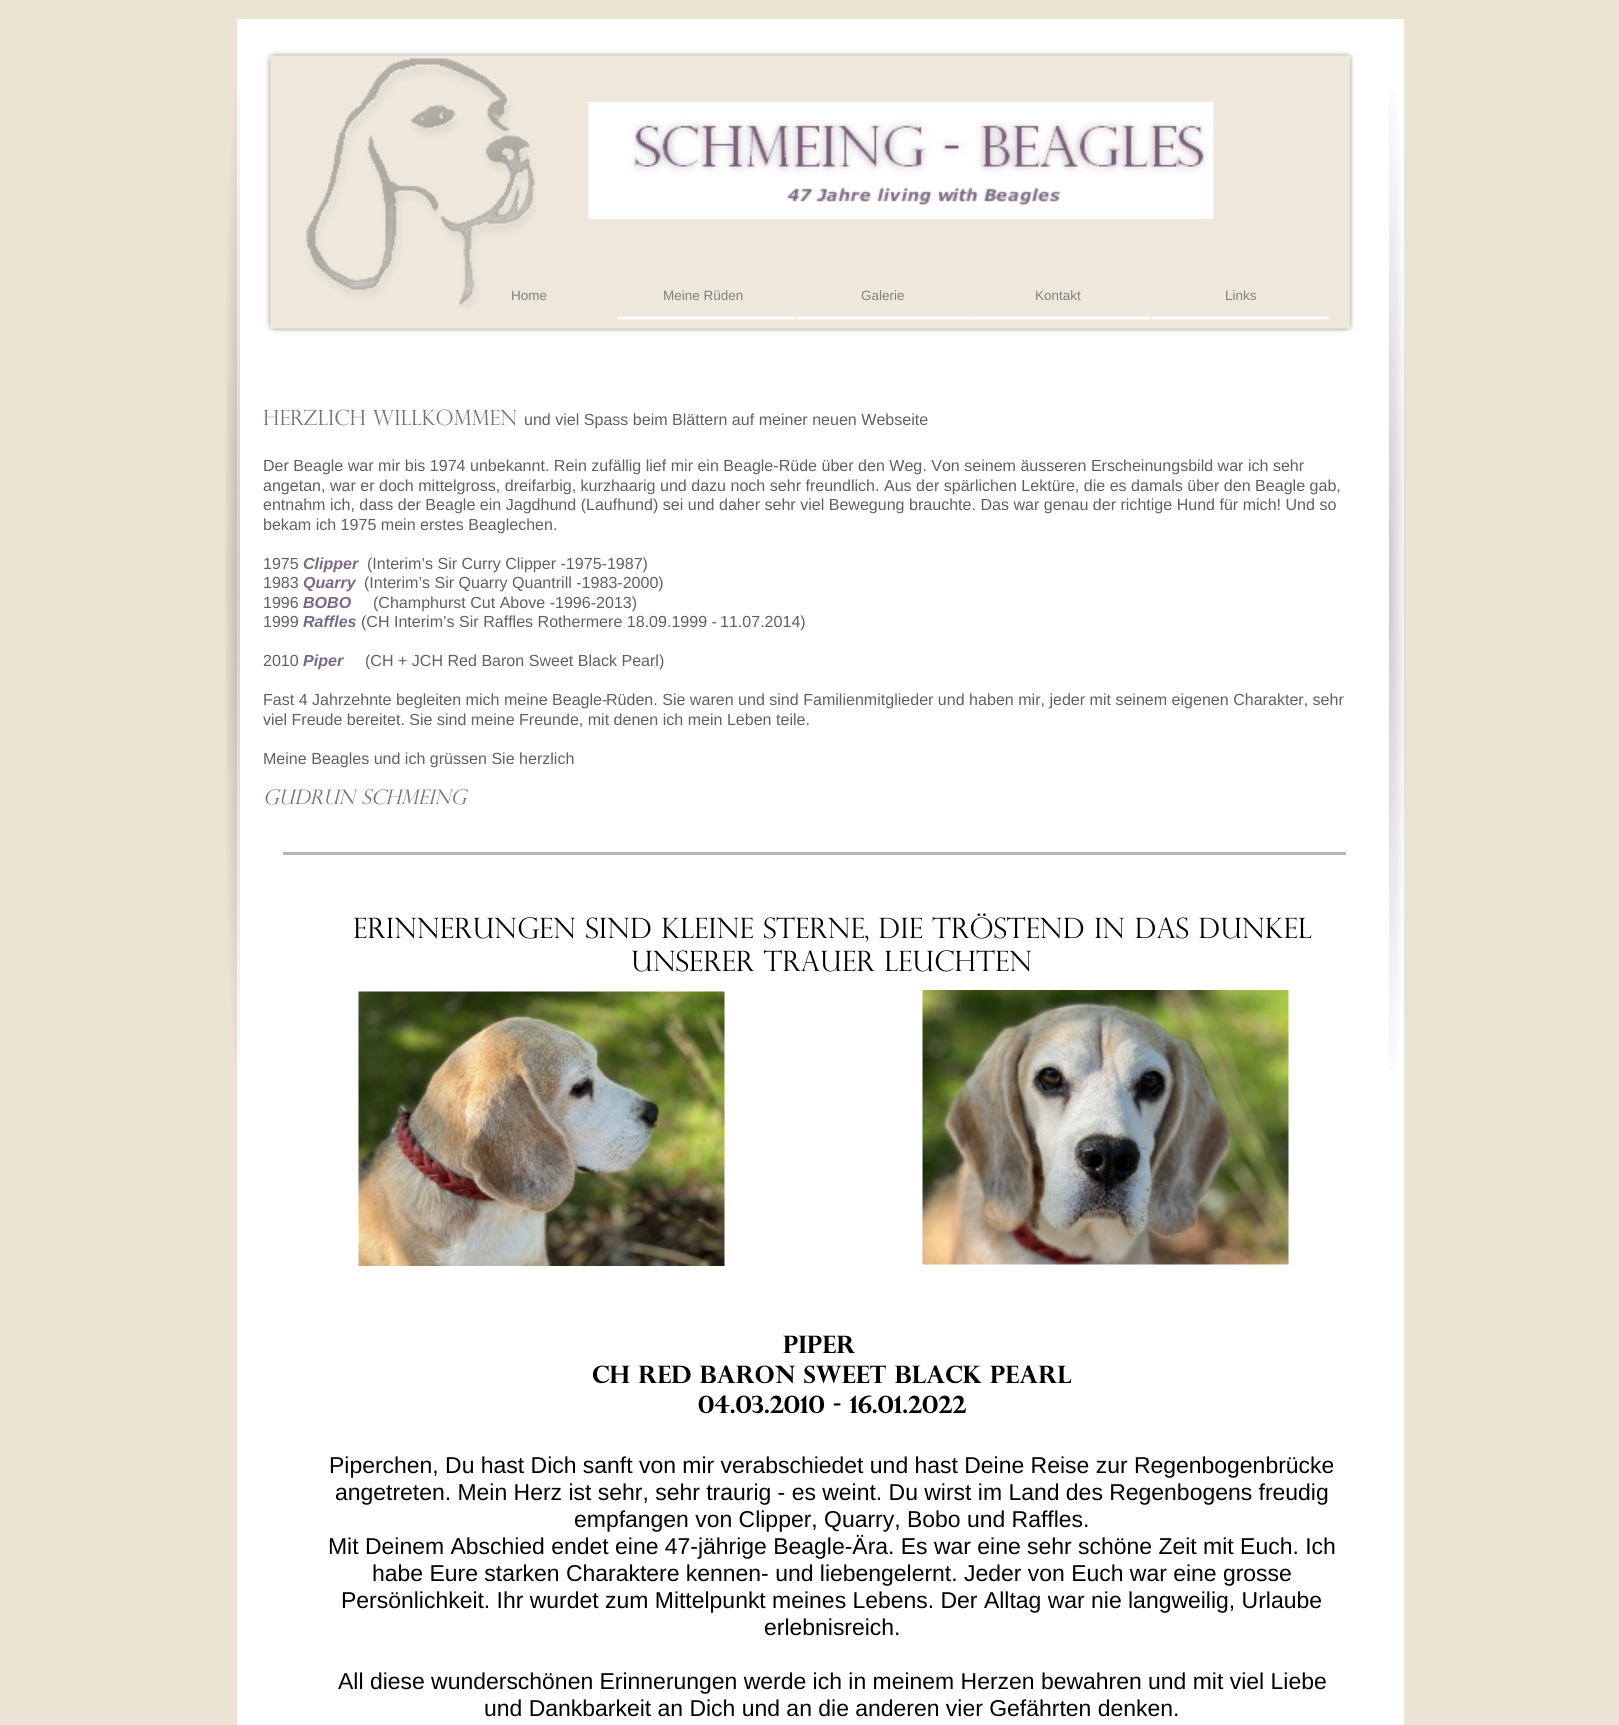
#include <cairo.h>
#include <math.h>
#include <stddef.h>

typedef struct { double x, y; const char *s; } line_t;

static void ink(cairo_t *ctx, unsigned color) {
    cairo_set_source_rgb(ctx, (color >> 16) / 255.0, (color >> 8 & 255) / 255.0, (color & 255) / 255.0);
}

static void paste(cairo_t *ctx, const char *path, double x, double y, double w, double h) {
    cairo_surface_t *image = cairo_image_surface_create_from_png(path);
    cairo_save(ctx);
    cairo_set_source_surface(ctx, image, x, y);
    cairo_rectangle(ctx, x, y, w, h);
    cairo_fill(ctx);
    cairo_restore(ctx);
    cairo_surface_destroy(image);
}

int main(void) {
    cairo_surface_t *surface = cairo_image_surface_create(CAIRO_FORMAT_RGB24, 1619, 1725);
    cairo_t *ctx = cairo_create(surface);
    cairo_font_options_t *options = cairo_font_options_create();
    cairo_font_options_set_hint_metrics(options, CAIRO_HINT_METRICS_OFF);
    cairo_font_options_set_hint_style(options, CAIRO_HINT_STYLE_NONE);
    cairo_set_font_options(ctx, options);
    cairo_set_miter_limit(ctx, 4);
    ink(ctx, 0xEBE3D3);
    cairo_paint(ctx);
    ink(ctx, 0xFFFFFF);
    cairo_rectangle(ctx, 237, 19, 1167, 1706);
    cairo_fill(ctx);
    paste(ctx, "media/1.png", 266, 51, 1088, 282);
    paste(ctx, "media/2.png", 225, 89, 15, 974);
    cairo_select_font_face(ctx, "Liberation Sans", CAIRO_FONT_SLANT_NORMAL, CAIRO_FONT_WEIGHT_NORMAL);
    cairo_set_font_size(ctx, 13.5);
    ink(ctx, 0x808080);
    cairo_move_to(ctx, 511, 300);
    cairo_show_text(ctx, "Home");
    paste(ctx, "media/3.png", 305, 58, 231, 251);
    paste(ctx, "media/4.png", 588, 102, 626, 117);
    paste(ctx, "media/5.png", 1389, 92, 17, 978);
    paste(ctx, "media/6.png", 787, 187, 274, 19);
    ink(ctx, 0xF2EDE2);
    cairo_rectangle(ctx, 441, 318, 177, 1);
    cairo_fill(ctx);
    paste(ctx, "media/7.png", 618, 316, 177, 4);
    ink(ctx, 0x808080);
    cairo_move_to(ctx, 663, 300);
    cairo_show_text(ctx, "Meine Rüden");
    paste(ctx, "media/8.png", 796, 316, 178, 4);
    cairo_move_to(ctx, 861, 300);
    cairo_show_text(ctx, "Galerie");
    paste(ctx, "media/9.png", 973, 316, 178, 4);
    cairo_move_to(ctx, 1035, 300);
    cairo_show_text(ctx, "Kontakt");
    paste(ctx, "media/7.png", 1152, 316, 177, 4);
    cairo_move_to(ctx, 1225, 300);
    cairo_show_text(ctx, "Links");
    cairo_select_font_face(ctx, "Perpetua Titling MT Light", CAIRO_FONT_SLANT_NORMAL, CAIRO_FONT_WEIGHT_NORMAL);
    cairo_set_font_size(ctx, 21);
    ink(ctx, 0x796B82);
    cairo_move_to(ctx, 263, 425);
    cairo_show_text(ctx, "Herzlich Willkommen");
    cairo_select_font_face(ctx, "Liberation Sans", CAIRO_FONT_SLANT_NORMAL, CAIRO_FONT_WEIGHT_NORMAL);
    cairo_set_font_size(ctx, 16.05);
    ink(ctx, 0x606060);
    {
        static const line_t items[] = {
            {524, 425, "und viel Spass beim Blättern auf meiner neuen Webseite"},
            {263, 471, "Der Beagle war mir bis 1974 unbekannt. Rein zufällig lief mir ein Beagle-Rüde über den Weg. Von seinem äusseren Erscheinungsbild war ich sehr"},
            {263, 491, "angetan, war er doch mittelgross, dreifarbig, kurzhaarig und dazu noch sehr freundlich. Aus der spärlichen Lektüre, die es damals über den Beagle gab,"},
            {263, 510, "entnahm ich, dass der Beagle ein Jagdhund (Laufhund) sei und daher sehr viel Bewegung brauchte. Das war genau der richtige Hund für mich! Und so"},
            {263, 530, "bekam ich 1975 mein erstes Beaglechen."},
            {263, 569, "1975"},
        };
        for (size_t i = 0; i < sizeof items / sizeof *items; i++) {
            cairo_move_to(ctx, items[i].x, items[i].y);
            cairo_show_text(ctx, items[i].s);
        }
    }
    cairo_select_font_face(ctx, "Liberation Sans", CAIRO_FONT_SLANT_ITALIC, CAIRO_FONT_WEIGHT_BOLD);
    ink(ctx, 0x796B82);
    cairo_move_to(ctx, 303, 569);
    cairo_show_text(ctx, "Clipper");
    cairo_select_font_face(ctx, "Liberation Sans", CAIRO_FONT_SLANT_NORMAL, CAIRO_FONT_WEIGHT_NORMAL);
    ink(ctx, 0x606060);
    cairo_move_to(ctx, 367, 569);
    cairo_show_text(ctx, "(Interim’s Sir Curry Clipper -1975-1987)");
    cairo_move_to(ctx, 263, 588);
    cairo_show_text(ctx, "1983");
    cairo_select_font_face(ctx, "Liberation Sans", CAIRO_FONT_SLANT_ITALIC, CAIRO_FONT_WEIGHT_BOLD);
    ink(ctx, 0x796B82);
    cairo_move_to(ctx, 303, 588);
    cairo_show_text(ctx, "Quarry");
    cairo_select_font_face(ctx, "Liberation Sans", CAIRO_FONT_SLANT_NORMAL, CAIRO_FONT_WEIGHT_NORMAL);
    ink(ctx, 0x606060);
    cairo_move_to(ctx, 364, 588);
    cairo_show_text(ctx, "(Interim’s Sir Quarry Quantrill -1983-2000)");
    cairo_move_to(ctx, 263, 608);
    cairo_show_text(ctx, "1996");
    cairo_select_font_face(ctx, "Liberation Sans", CAIRO_FONT_SLANT_ITALIC, CAIRO_FONT_WEIGHT_BOLD);
    ink(ctx, 0x796B82);
    cairo_move_to(ctx, 303, 608);
    cairo_show_text(ctx, "BOBO");
    cairo_select_font_face(ctx, "Liberation Sans", CAIRO_FONT_SLANT_NORMAL, CAIRO_FONT_WEIGHT_NORMAL);
    ink(ctx, 0x606060);
    cairo_move_to(ctx, 373, 608);
    cairo_show_text(ctx, "(Champhurst Cut Above -1996-2013)");
    cairo_move_to(ctx, 263, 627);
    cairo_show_text(ctx, "1999");
    cairo_select_font_face(ctx, "Liberation Sans", CAIRO_FONT_SLANT_ITALIC, CAIRO_FONT_WEIGHT_BOLD);
    ink(ctx, 0x796B82);
    cairo_move_to(ctx, 303, 627);
    cairo_show_text(ctx, "Raffles");
    cairo_select_font_face(ctx, "Liberation Sans", CAIRO_FONT_SLANT_NORMAL, CAIRO_FONT_WEIGHT_NORMAL);
    ink(ctx, 0x606060);
    {
        static const line_t items[] = {
            {361, 627, "(CH Interim’s Sir Raffles Rothermere 18.09.1999 -"},
            {720, 627, "11.07.2014)"},
            {263, 666, "2010"},
        };
        for (size_t i = 0; i < sizeof items / sizeof *items; i++) {
            cairo_move_to(ctx, items[i].x, items[i].y);
            cairo_show_text(ctx, items[i].s);
        }
    }
    cairo_select_font_face(ctx, "Liberation Sans", CAIRO_FONT_SLANT_ITALIC, CAIRO_FONT_WEIGHT_BOLD);
    ink(ctx, 0x796B82);
    cairo_move_to(ctx, 303, 666);
    cairo_show_text(ctx, "Piper");
    cairo_select_font_face(ctx, "Liberation Sans", CAIRO_FONT_SLANT_NORMAL, CAIRO_FONT_WEIGHT_NORMAL);
    ink(ctx, 0x606060);
    {
        static const line_t items[] = {
            {365, 666, "(CH + JCH Red Baron Sweet Black Pearl)"},
            {263, 705, "Fast 4 Jahrzehnte begleiten mich meine Beagle-"},
            {606, 705, "Rüden. Sie waren und sind Familienmitglieder und haben mir, jeder mit seinem eigenen Charakter, sehr"},
            {263, 725, "viel Freude bereitet. Sie sind meine Freunde, mit denen ich mein Leben teile."},
            {263, 764, "Meine Beagles und ich grüssen Sie herzlich"},
        };
        for (size_t i = 0; i < sizeof items / sizeof *items; i++) {
            cairo_move_to(ctx, items[i].x, items[i].y);
            cairo_show_text(ctx, items[i].s);
        }
    }
    cairo_select_font_face(ctx, "Perpetua Titling MT Light", CAIRO_FONT_SLANT_ITALIC, CAIRO_FONT_WEIGHT_NORMAL);
    cairo_set_font_size(ctx, 20);
    ink(ctx, 0x796B82);
    cairo_move_to(ctx, 263, 804);
    cairo_show_text(ctx, "Gudrun Schmeing");
    ink(ctx, 0xB4B4B1);
    cairo_rectangle(ctx, 283, 852, 1063, 3);
    cairo_fill(ctx);
    cairo_select_font_face(ctx, "Perpetua Titling MT Light", CAIRO_FONT_SLANT_NORMAL, CAIRO_FONT_WEIGHT_NORMAL);
    cairo_set_font_size(ctx, 28.05);
    ink(ctx, 0x000000);
    cairo_move_to(ctx, 353, 938);
    cairo_show_text(ctx, "Erinnerungen sind kleine Sterne, die tröstend in das Dunkel");
    cairo_move_to(ctx, 631, 971);
    cairo_show_text(ctx, "unserer Trauer leuchten");
    cairo_select_font_face(ctx, "Perpetua Titling MT", CAIRO_FONT_SLANT_NORMAL, CAIRO_FONT_WEIGHT_BOLD);
    cairo_set_font_size(ctx, 24);
    {
        static const line_t items[] = {
            {783, 1353, "PIPER"},
            {592, 1383, "CH Red Baron Sweet Black Pearl"},
            {698, 1413, "04.03.2010 - 16.01.2022"},
        };
        for (size_t i = 0; i < sizeof items / sizeof *items; i++) {
            cairo_move_to(ctx, items[i].x, items[i].y);
            cairo_show_text(ctx, items[i].s);
        }
    }
    cairo_select_font_face(ctx, "Liberation Sans", CAIRO_FONT_SLANT_NORMAL, CAIRO_FONT_WEIGHT_NORMAL);
    cairo_set_font_size(ctx, 22.95);
    {
        static const line_t items[] = {
            {329, 1473, "Piperchen, Du hast Dich sanft von mir verabschiedet und hast Deine Reise zur Regenbogenbrücke"},
            {335, 1500, "angetreten. Mein Herz ist sehr, sehr traurig - es weint. Du wirst im Land des Regenbogens freudig"},
            {574, 1527, "empfangen von Clipper, Quarry, Bobo und Raffles."},
            {328, 1554, "Mit Deinem Abschied endet eine 47-jährige Beagle-Ära. Es war eine sehr schöne Zeit mit Euch. Ich"},
            {372, 1581, "habe Eure starken Charaktere kennen- und liebengelernt. Jeder von Euch war eine grosse"},
            {341, 1608, "Persönlichkeit. Ihr wurdet zum Mittelpunkt meines Lebens. Der Alltag war nie langweilig, Urlaube"},
            {764, 1635, "erlebnisreich."},
            {338, 1689, "All diese wunderschönen Erinnerungen werde ich in meinem Herzen bewahren und mit viel Liebe"},
            {484, 1716, "und Dankbarkeit an Dich und an die anderen vier Gefährten denken."},
        };
        for (size_t i = 0; i < sizeof items / sizeof *items; i++) {
            cairo_move_to(ctx, items[i].x, items[i].y);
            cairo_show_text(ctx, items[i].s);
        }
    }
    paste(ctx, "media/10.png", 358, 991, 367, 275);
    paste(ctx, "media/11.png", 922, 990, 367, 275);
    cairo_surface_write_to_png(surface, "image.png");
    cairo_font_options_destroy(options);
    cairo_destroy(ctx);
    cairo_surface_destroy(surface);
    return 0;
}
